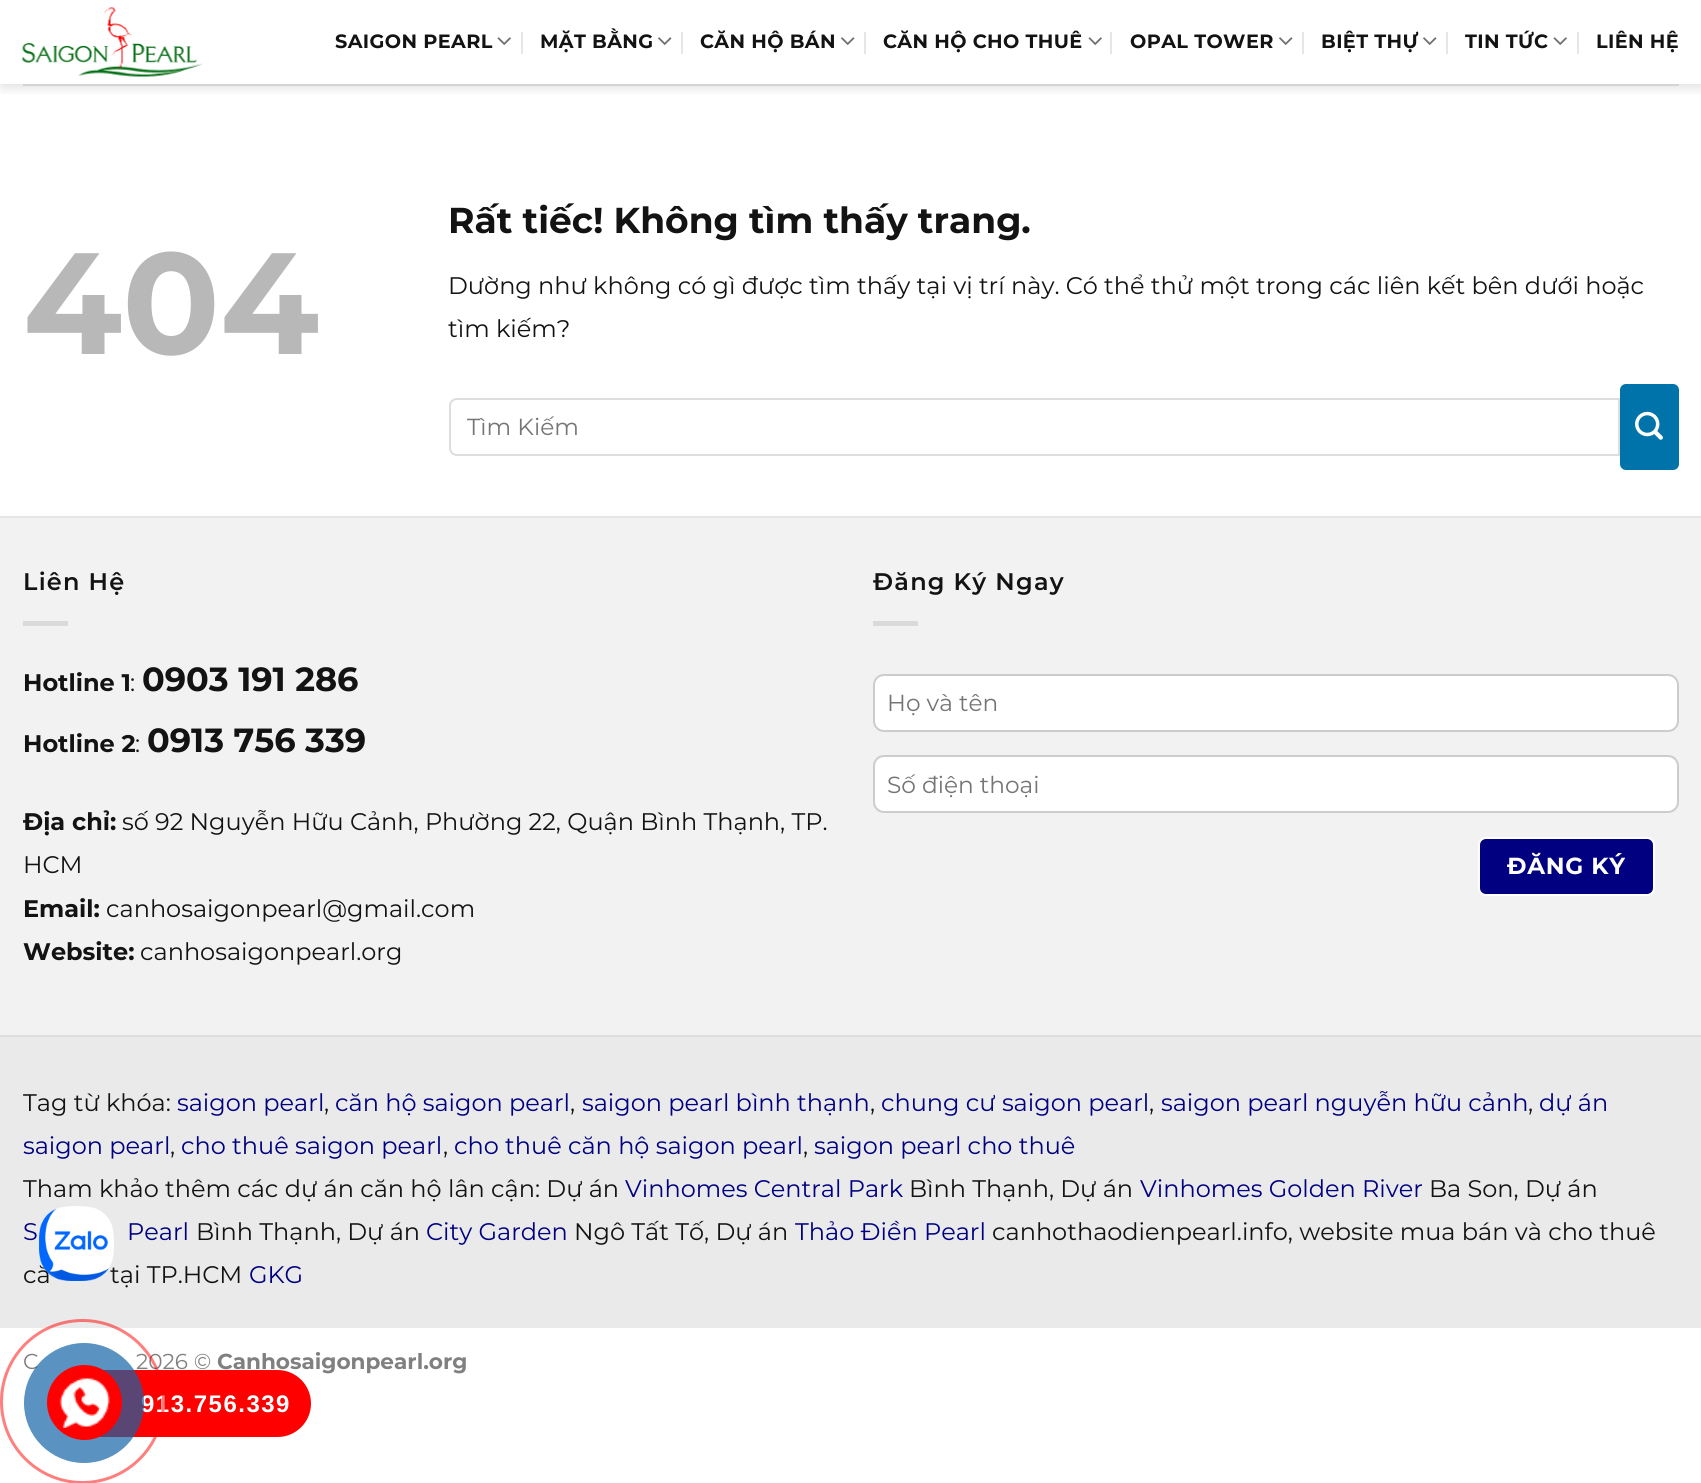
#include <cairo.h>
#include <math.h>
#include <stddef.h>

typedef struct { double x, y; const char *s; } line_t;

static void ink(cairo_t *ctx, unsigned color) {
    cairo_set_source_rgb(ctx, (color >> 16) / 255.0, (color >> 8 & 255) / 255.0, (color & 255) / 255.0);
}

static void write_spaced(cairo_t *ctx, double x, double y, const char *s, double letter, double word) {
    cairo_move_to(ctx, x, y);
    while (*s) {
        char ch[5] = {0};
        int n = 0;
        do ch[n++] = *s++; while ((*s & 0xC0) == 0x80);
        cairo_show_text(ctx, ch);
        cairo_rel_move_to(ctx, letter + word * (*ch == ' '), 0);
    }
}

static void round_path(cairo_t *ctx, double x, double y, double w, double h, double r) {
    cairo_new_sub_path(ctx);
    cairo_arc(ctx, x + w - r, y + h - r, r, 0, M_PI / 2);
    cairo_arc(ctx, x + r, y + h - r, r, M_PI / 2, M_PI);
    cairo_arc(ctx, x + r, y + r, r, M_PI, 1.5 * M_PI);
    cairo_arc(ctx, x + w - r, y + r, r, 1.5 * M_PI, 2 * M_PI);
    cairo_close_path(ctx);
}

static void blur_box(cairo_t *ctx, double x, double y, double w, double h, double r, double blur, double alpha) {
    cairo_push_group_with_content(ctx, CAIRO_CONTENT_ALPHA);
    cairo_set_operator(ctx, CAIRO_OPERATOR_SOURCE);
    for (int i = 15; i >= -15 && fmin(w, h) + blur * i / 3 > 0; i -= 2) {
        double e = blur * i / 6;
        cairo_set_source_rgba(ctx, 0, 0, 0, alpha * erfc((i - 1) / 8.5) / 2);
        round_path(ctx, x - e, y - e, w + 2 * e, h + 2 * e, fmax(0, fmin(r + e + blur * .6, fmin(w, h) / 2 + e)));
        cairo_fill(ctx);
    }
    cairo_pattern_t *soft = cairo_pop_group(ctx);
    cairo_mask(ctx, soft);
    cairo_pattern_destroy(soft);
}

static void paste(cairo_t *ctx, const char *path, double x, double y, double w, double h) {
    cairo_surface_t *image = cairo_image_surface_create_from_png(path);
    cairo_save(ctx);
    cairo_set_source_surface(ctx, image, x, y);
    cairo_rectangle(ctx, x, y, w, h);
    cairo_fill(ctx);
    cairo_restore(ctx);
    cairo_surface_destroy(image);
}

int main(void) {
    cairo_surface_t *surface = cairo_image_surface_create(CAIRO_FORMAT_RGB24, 1701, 1483);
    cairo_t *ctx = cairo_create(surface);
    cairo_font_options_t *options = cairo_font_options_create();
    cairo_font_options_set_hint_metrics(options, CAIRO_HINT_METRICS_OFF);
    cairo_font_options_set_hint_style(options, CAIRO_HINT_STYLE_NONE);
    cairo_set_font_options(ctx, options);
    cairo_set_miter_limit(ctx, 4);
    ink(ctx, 0xFFFFFF);
    cairo_paint(ctx);
    cairo_save(ctx);
    cairo_rectangle(ctx, 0, 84, 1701, 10);
    cairo_clip(ctx);
    ink(ctx, 0x000000);
    blur_box(ctx, 2, 2, 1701, 84, 0, 7.5, 0.15);
    cairo_restore(ctx);
    paste(ctx, "media/1.png", 22, 7, 181, 70);
    cairo_select_font_face(ctx, "Montserrat", CAIRO_FONT_SLANT_NORMAL, CAIRO_FONT_WEIGHT_BOLD);
    cairo_set_font_size(ctx, 19.25);
    ink(ctx, 0x131313);
    write_spaced(ctx, 335, 48, "SAIGON PEARL", 0.4, 0);
    paste(ctx, "media/2.png", 497, 37, 14, 8);
    ink(ctx, 0xE6E6E6);
    cairo_rectangle(ctx, 521, 32, 2, 22);
    cairo_fill(ctx);
    ink(ctx, 0x131313);
    write_spaced(ctx, 540, 48, "MẶT BẰNG", 0.4, 0);
    paste(ctx, "media/3.png", 658, 37, 14, 8);
    ink(ctx, 0xE6E6E6);
    cairo_rectangle(ctx, 681, 32, 2, 22);
    cairo_fill(ctx);
    ink(ctx, 0x131313);
    write_spaced(ctx, 700, 48, "CĂN HỘ BÁN", 0.4, 0);
    paste(ctx, "media/3.png", 841, 37, 14, 8);
    ink(ctx, 0xE6E6E6);
    cairo_rectangle(ctx, 864, 32, 2, 22);
    cairo_fill(ctx);
    ink(ctx, 0x131313);
    write_spaced(ctx, 883, 48, "CĂN HỘ CHO THUÊ", 0.4, 0);
    paste(ctx, "media/2.png", 1088, 37, 14, 8);
    ink(ctx, 0xE6E6E6);
    cairo_rectangle(ctx, 1110, 32, 2, 22);
    cairo_fill(ctx);
    ink(ctx, 0x131313);
    write_spaced(ctx, 1130, 48, "OPAL TOWER", 0.4, 0);
    paste(ctx, "media/3.png", 1279, 37, 14, 8);
    ink(ctx, 0xE6E6E6);
    cairo_rectangle(ctx, 1302, 32, 2, 22);
    cairo_fill(ctx);
    ink(ctx, 0x131313);
    write_spaced(ctx, 1321, 48, "BIỆT THỰ", 0.4, 0);
    paste(ctx, "media/3.png", 1423, 37, 14, 8);
    ink(ctx, 0xE6E6E6);
    cairo_rectangle(ctx, 1446, 32, 2, 22);
    cairo_fill(ctx);
    ink(ctx, 0x131313);
    write_spaced(ctx, 1465, 48, "TIN TỨC", 0.4, 0);
    paste(ctx, "media/2.png", 1553, 37, 14, 8);
    ink(ctx, 0xE6E6E6);
    cairo_rectangle(ctx, 1577, 32, 2, 22);
    cairo_fill(ctx);
    ink(ctx, 0x131313);
    write_spaced(ctx, 1596, 48, "LIÊN HỆ", 0.4, 0);
    ink(ctx, 0xD4D4D4);
    cairo_rectangle(ctx, 23, 84, 1656, 2);
    cairo_fill(ctx);
    cairo_set_font_size(ctx, 144);
    ink(ctx, 0xB8B8B8);
    cairo_move_to(ctx, 23, 354);
    cairo_show_text(ctx, "404");
    cairo_set_font_size(ctx, 36);
    ink(ctx, 0x131313);
    cairo_move_to(ctx, 448, 233);
    cairo_show_text(ctx, "Rất tiếc! Không tìm thấy trang.");
    cairo_select_font_face(ctx, "Montserrat", CAIRO_FONT_SLANT_NORMAL, CAIRO_FONT_WEIGHT_NORMAL);
    cairo_set_font_size(ctx, 24);
    cairo_move_to(ctx, 448, 294);
    cairo_show_text(ctx, "Dường như không có gì được tìm thấy tại vị trí này. Có thể thử một trong các liên kết bên dưới hoặc");
    cairo_move_to(ctx, 448, 337);
    cairo_show_text(ctx, "tìm kiếm?");
    cairo_new_path(ctx);
    cairo_move_to(ctx, 457, 399);
    cairo_line_to(ctx, 1619, 399);
    cairo_line_to(ctx, 1619, 455);
    cairo_line_to(ctx, 457, 455);
    cairo_curve_to(ctx, 453, 455, 450, 452, 450, 448);
    cairo_line_to(ctx, 450, 406);
    cairo_curve_to(ctx, 450, 402, 453, 399, 457, 399);
    cairo_close_path(ctx);
    ink(ctx, 0xDDDDDD);
    cairo_stroke(ctx);
    cairo_set_font_size(ctx, 23.25);
    ink(ctx, 0x757575);
    cairo_move_to(ctx, 467, 435);
    cairo_show_text(ctx, "Tìm Kiếm");
    ink(ctx, 0x0073AA);
    round_path(ctx, 1620, 384, 59, 86, 6);
    cairo_fill(ctx);
    paste(ctx, "media/4.png", 1635, 411, 28, 29);
    ink(ctx, 0xF2F2F2);
    cairo_rectangle(ctx, 0, 518, 1701, 517);
    cairo_fill(ctx);
    ink(ctx, 0xE6E6E6);
    cairo_rectangle(ctx, 0, 516, 1701, 2);
    cairo_fill(ctx);
    cairo_select_font_face(ctx, "Montserrat SemiBold", CAIRO_FONT_SLANT_NORMAL, CAIRO_FONT_WEIGHT_NORMAL);
    cairo_set_font_size(ctx, 24);
    ink(ctx, 0x131313);
    write_spaced(ctx, 23, 590, "Liên Hệ", 1.25, 0);
    ink(ctx, 0xDADADA);
    cairo_rectangle(ctx, 23, 621, 45, 5);
    cairo_fill(ctx);
    cairo_select_font_face(ctx, "Montserrat", CAIRO_FONT_SLANT_NORMAL, CAIRO_FONT_WEIGHT_BOLD);
    ink(ctx, 0x131313);
    cairo_move_to(ctx, 23, 691);
    cairo_show_text(ctx, "Hotline 1");
    cairo_select_font_face(ctx, "Montserrat", CAIRO_FONT_SLANT_NORMAL, CAIRO_FONT_WEIGHT_NORMAL);
    cairo_move_to(ctx, 130, 691);
    cairo_show_text(ctx, ":");
    cairo_select_font_face(ctx, "Montserrat", CAIRO_FONT_SLANT_NORMAL, CAIRO_FONT_WEIGHT_BOLD);
    cairo_set_font_size(ctx, 33.5);
    cairo_move_to(ctx, 142, 691);
    cairo_show_text(ctx, "0903 191 286");
    cairo_set_font_size(ctx, 24);
    cairo_move_to(ctx, 23, 752);
    cairo_show_text(ctx, "Hotline 2");
    cairo_select_font_face(ctx, "Montserrat", CAIRO_FONT_SLANT_NORMAL, CAIRO_FONT_WEIGHT_NORMAL);
    cairo_move_to(ctx, 135, 752);
    cairo_show_text(ctx, ":");
    cairo_select_font_face(ctx, "Montserrat", CAIRO_FONT_SLANT_NORMAL, CAIRO_FONT_WEIGHT_BOLD);
    cairo_set_font_size(ctx, 33.5);
    cairo_move_to(ctx, 147, 752);
    cairo_show_text(ctx, "0913 756 339");
    cairo_set_font_size(ctx, 24);
    cairo_move_to(ctx, 23, 830);
    cairo_show_text(ctx, "Địa chỉ:");
    cairo_select_font_face(ctx, "Montserrat", CAIRO_FONT_SLANT_NORMAL, CAIRO_FONT_WEIGHT_NORMAL);
    cairo_move_to(ctx, 122, 830);
    cairo_show_text(ctx, "số 92 Nguyễn Hữu Cảnh, Phường 22, Quận Bình Thạnh, TP.");
    cairo_move_to(ctx, 23, 873);
    cairo_show_text(ctx, "HCM");
    cairo_select_font_face(ctx, "Montserrat", CAIRO_FONT_SLANT_NORMAL, CAIRO_FONT_WEIGHT_BOLD);
    cairo_move_to(ctx, 23, 917);
    cairo_show_text(ctx, "Email:");
    cairo_select_font_face(ctx, "Montserrat", CAIRO_FONT_SLANT_NORMAL, CAIRO_FONT_WEIGHT_NORMAL);
    cairo_move_to(ctx, 106, 917);
    cairo_show_text(ctx, "canhosaigonpearl@gmail.com");
    cairo_select_font_face(ctx, "Montserrat", CAIRO_FONT_SLANT_NORMAL, CAIRO_FONT_WEIGHT_BOLD);
    cairo_move_to(ctx, 23, 960);
    cairo_show_text(ctx, "Website:");
    cairo_select_font_face(ctx, "Montserrat", CAIRO_FONT_SLANT_NORMAL, CAIRO_FONT_WEIGHT_NORMAL);
    cairo_move_to(ctx, 140, 960);
    cairo_show_text(ctx, "canhosaigonpearl.org");
    cairo_select_font_face(ctx, "Montserrat SemiBold", CAIRO_FONT_SLANT_NORMAL, CAIRO_FONT_WEIGHT_NORMAL);
    write_spaced(ctx, 873, 590, "Đăng Ký Ngay", 1.25, 0);
    ink(ctx, 0xDADADA);
    cairo_rectangle(ctx, 873, 621, 45, 5);
    cairo_fill(ctx);
    ink(ctx, 0xFFFFFF);
    round_path(ctx, 874, 675, 804, 56, 10);
    cairo_fill_preserve(ctx);
    ink(ctx, 0xCCCCCC);
    cairo_stroke(ctx);
    cairo_select_font_face(ctx, "Montserrat", CAIRO_FONT_SLANT_NORMAL, CAIRO_FONT_WEIGHT_NORMAL);
    cairo_set_font_size(ctx, 23.25);
    ink(ctx, 0x757575);
    cairo_move_to(ctx, 887, 711);
    cairo_show_text(ctx, "Họ và tên");
    ink(ctx, 0xFFFFFF);
    round_path(ctx, 874, 756, 804, 56, 10);
    cairo_fill_preserve(ctx);
    ink(ctx, 0xCCCCCC);
    cairo_stroke(ctx);
    ink(ctx, 0x757575);
    cairo_move_to(ctx, 887, 793);
    cairo_show_text(ctx, "Số điện thoại");
    ink(ctx, 0x000080);
    round_path(ctx, 1479, 838, 175, 57, 7);
    cairo_fill_preserve(ctx);
    ink(ctx, 0xFFFFFF);
    cairo_stroke(ctx);
    cairo_select_font_face(ctx, "Montserrat", CAIRO_FONT_SLANT_NORMAL, CAIRO_FONT_WEIGHT_BOLD);
    write_spaced(ctx, 1507, 874, "ĐĂNG KÝ", 0.75, 0);
    ink(ctx, 0xEAEAEA);
    cairo_rectangle(ctx, 0, 1037, 1701, 291);
    cairo_fill(ctx);
    ink(ctx, 0xDEDEDE);
    cairo_rectangle(ctx, 0, 1035, 1701, 2);
    cairo_fill(ctx);
    cairo_select_font_face(ctx, "Montserrat", CAIRO_FONT_SLANT_NORMAL, CAIRO_FONT_WEIGHT_NORMAL);
    cairo_set_font_size(ctx, 24);
    ink(ctx, 0x131313);
    cairo_move_to(ctx, 23, 1111);
    cairo_show_text(ctx, "Tag từ khóa:");
    ink(ctx, 0x000080);
    cairo_move_to(ctx, 177, 1111);
    cairo_show_text(ctx, "saigon pearl");
    ink(ctx, 0x131313);
    cairo_move_to(ctx, 324, 1111);
    cairo_show_text(ctx, ",");
    ink(ctx, 0x000080);
    cairo_move_to(ctx, 335, 1111);
    cairo_show_text(ctx, "căn hộ saigon pearl");
    ink(ctx, 0x131313);
    cairo_move_to(ctx, 570, 1111);
    cairo_show_text(ctx, ",");
    ink(ctx, 0x000080);
    cairo_move_to(ctx, 582, 1111);
    cairo_show_text(ctx, "saigon pearl bình thạnh");
    ink(ctx, 0x131313);
    cairo_move_to(ctx, 870, 1111);
    cairo_show_text(ctx, ",");
    ink(ctx, 0x000080);
    cairo_move_to(ctx, 881, 1111);
    cairo_show_text(ctx, "chung cư saigon pearl");
    ink(ctx, 0x131313);
    cairo_move_to(ctx, 1149, 1111);
    cairo_show_text(ctx, ",");
    ink(ctx, 0x000080);
    cairo_move_to(ctx, 1161, 1111);
    cairo_show_text(ctx, "saigon pearl nguyễn hữu cảnh");
    ink(ctx, 0x131313);
    cairo_move_to(ctx, 1528, 1111);
    cairo_show_text(ctx, ",");
    ink(ctx, 0x000080);
    cairo_move_to(ctx, 1539, 1111);
    cairo_show_text(ctx, "dự án");
    cairo_move_to(ctx, 23, 1154);
    cairo_show_text(ctx, "saigon pearl");
    ink(ctx, 0x131313);
    cairo_move_to(ctx, 170, 1154);
    cairo_show_text(ctx, ",");
    ink(ctx, 0x000080);
    cairo_move_to(ctx, 181, 1154);
    cairo_show_text(ctx, "cho thuê saigon pearl");
    ink(ctx, 0x131313);
    cairo_move_to(ctx, 443, 1154);
    cairo_show_text(ctx, ",");
    ink(ctx, 0x000080);
    cairo_move_to(ctx, 454, 1154);
    cairo_show_text(ctx, "cho thuê căn hộ saigon pearl");
    ink(ctx, 0x131313);
    cairo_move_to(ctx, 803, 1154);
    cairo_show_text(ctx, ",");
    ink(ctx, 0x000080);
    cairo_move_to(ctx, 814, 1154);
    cairo_show_text(ctx, "saigon pearl cho thuê");
    ink(ctx, 0x131313);
    cairo_move_to(ctx, 23, 1197);
    cairo_show_text(ctx, "Tham khảo thêm các dự án căn hộ lân cận: Dự án");
    ink(ctx, 0x000080);
    cairo_move_to(ctx, 625, 1197);
    cairo_show_text(ctx, "Vinhomes Central Park");
    ink(ctx, 0x131313);
    cairo_move_to(ctx, 909, 1197);
    cairo_show_text(ctx, "Bình Thạnh, Dự án");
    ink(ctx, 0x000080);
    cairo_move_to(ctx, 1140, 1197);
    cairo_show_text(ctx, "Vinhomes Golden River");
    ink(ctx, 0x131313);
    cairo_move_to(ctx, 1429, 1197);
    cairo_show_text(ctx, "Ba Son, Dự án");
    ink(ctx, 0x000080);
    cairo_move_to(ctx, 23, 1240);
    cairo_show_text(ctx, "S");
    cairo_move_to(ctx, 127, 1240);
    cairo_show_text(ctx, "Pearl");
    ink(ctx, 0x131313);
    cairo_move_to(ctx, 196, 1240);
    cairo_show_text(ctx, "Bình Thạnh, Dự án");
    ink(ctx, 0x000080);
    cairo_move_to(ctx, 426, 1240);
    cairo_show_text(ctx, "City Garden");
    ink(ctx, 0x131313);
    cairo_move_to(ctx, 574, 1240);
    cairo_show_text(ctx, "Ngô Tất Tố, Dự án");
    ink(ctx, 0x000080);
    cairo_move_to(ctx, 795, 1240);
    cairo_show_text(ctx, "Thảo Điền Pearl");
    ink(ctx, 0x131313);
    {
        static const line_t items[] = {
            {992, 1240, "canhothaodienpearl.info, website mua bán và cho thuê"},
            {23, 1283, "că"},
            {110, 1283, "tại TP.HCM"},
        };
        for (size_t i = 0; i < sizeof items / sizeof *items; i++) {
            cairo_move_to(ctx, items[i].x, items[i].y);
            cairo_show_text(ctx, items[i].s);
        }
    }
    ink(ctx, 0x000080);
    cairo_move_to(ctx, 249, 1283);
    cairo_show_text(ctx, "GKG");
    cairo_set_font_size(ctx, 21.6);
    ink(ctx, 0x808080);
    cairo_move_to(ctx, 23, 1369);
    cairo_show_text(ctx, "C");
    cairo_move_to(ctx, 136, 1369);
    cairo_show_text(ctx, "2026 ©");
    cairo_select_font_face(ctx, "Montserrat", CAIRO_FONT_SLANT_NORMAL, CAIRO_FONT_WEIGHT_BOLD);
    cairo_move_to(ctx, 217, 1369);
    cairo_show_text(ctx, "Canhosaigonpearl.org");
    paste(ctx, "media/5.png", 39, 1206, 75, 75);
    ink(ctx, 0xFF0000);
    round_path(ctx, 63, 1370, 248, 67, 33.5);
    cairo_fill(ctx);
    cairo_select_font_face(ctx, "Liberation Sans", CAIRO_FONT_SLANT_NORMAL, CAIRO_FONT_WEIGHT_BOLD);
    cairo_set_font_size(ctx, 24);
    ink(ctx, 0xFFFFFF);
    write_spaced(ctx, 141, 1412, "913.756.339", 1.5, 0);
    cairo_new_path(ctx);
    cairo_arc(ctx, 82.5, 1401.5, 81, 0, 2 * M_PI);
    cairo_set_source_rgba(ctx, 1, 0, 0, 0.5);
    cairo_set_line_width(ctx, 3);
    cairo_stroke(ctx);
    cairo_set_source_rgba(ctx, 0.082, 0.392, 0.655, 0.7);
    cairo_arc(ctx, 84, 1403, 60, 0, 2 * M_PI);
    cairo_fill(ctx);
    ink(ctx, 0xFF0000);
    cairo_arc(ctx, 84.5, 1402.5, 37.5, 0, 2 * M_PI);
    cairo_fill(ctx);
    paste(ctx, "media/6.png", 59, 1377, 51, 51);
    cairo_surface_write_to_png(surface, "image.png");
    cairo_font_options_destroy(options);
    cairo_destroy(ctx);
    cairo_surface_destroy(surface);
    return 0;
}
